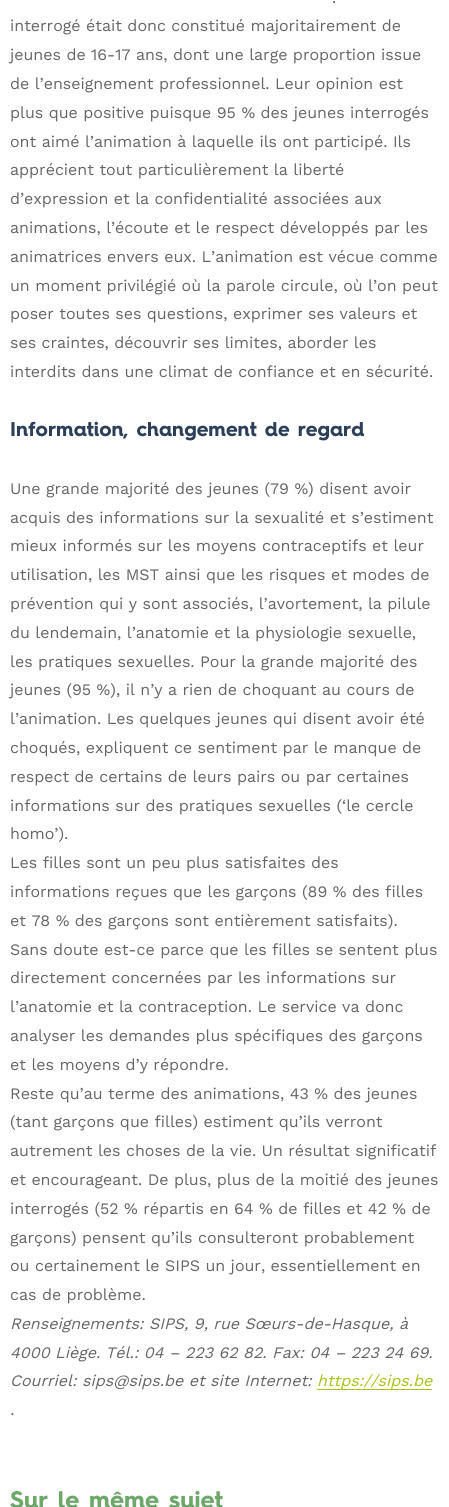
#include <cairo.h>
#include <math.h>
#include <stddef.h>

typedef struct { double x, y; const char *s; } line_t;

static void ink(cairo_t *ctx, unsigned color) {
    cairo_set_source_rgb(ctx, (color >> 16) / 255.0, (color >> 8 & 255) / 255.0, (color & 255) / 255.0);
}

int main(void) {
    cairo_surface_t *surface = cairo_image_surface_create(CAIRO_FORMAT_RGB24, 449, 1507);
    cairo_t *ctx = cairo_create(surface);
    cairo_font_options_t *options = cairo_font_options_create();
    cairo_font_options_set_hint_metrics(options, CAIRO_HINT_METRICS_OFF);
    cairo_font_options_set_hint_style(options, CAIRO_HINT_STYLE_NONE);
    cairo_set_font_options(ctx, options);
    cairo_set_miter_limit(ctx, 4);
    ink(ctx, 0xFFFFFF);
    cairo_paint(ctx);
    cairo_select_font_face(ctx, "Work Sans", CAIRO_FONT_SLANT_NORMAL, CAIRO_FONT_WEIGHT_NORMAL);
    cairo_set_font_size(ctx, 16);
    ink(ctx, 0x666666);
    {
        static const line_t items[] = {
            {332, 3, "."},
            {10, 31, "interrogé était donc constitué majoritairement de"},
            {10, 60, "jeunes de 16-17 ans, dont une large proportion issue"},
            {10, 89, "de l’enseignement professionnel. Leur opinion est"},
            {10, 118, "plus que positive puisque 95 % des jeunes interrogés"},
            {10, 147, "ont aimé l’animation à laquelle ils ont participé. Ils"},
            {10, 175, "apprécient tout particulièrement la liberté"},
            {10, 204, "d’expression et la confidentialité associées aux"},
            {10, 233, "animations, l’écoute et le respect développés par les"},
            {10, 262, "animatrices envers eux. L’animation est vécue comme"},
            {10, 291, "un moment privilégié où la parole circule, où l’on peut"},
            {10, 319, "poser toutes ses questions, exprimer ses valeurs et"},
            {10, 348, "ses craintes, découvrir ses limites, aborder les"},
            {10, 377, "interdits dans une climat de confiance et en sécurité."},
        };
        for (size_t i = 0; i < sizeof items / sizeof *items; i++) {
            cairo_move_to(ctx, items[i].x, items[i].y);
            cairo_show_text(ctx, items[i].s);
        }
    }
    cairo_select_font_face(ctx, "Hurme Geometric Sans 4", CAIRO_FONT_SLANT_NORMAL, CAIRO_FONT_WEIGHT_BOLD);
    cairo_set_font_size(ctx, 20);
    ink(ctx, 0x2C3F58);
    cairo_move_to(ctx, 10, 436);
    cairo_show_text(ctx, "Information, changement de regard");
    cairo_select_font_face(ctx, "Work Sans", CAIRO_FONT_SLANT_NORMAL, CAIRO_FONT_WEIGHT_NORMAL);
    cairo_set_font_size(ctx, 16);
    ink(ctx, 0x666666);
    {
        static const line_t items[] = {
            {10, 494, "Une grande majorité des jeunes (79 %) disent avoir"},
            {10, 523, "acquis des informations sur la sexualité et s’estiment"},
            {10, 551, "mieux informés sur les moyens contraceptifs et leur"},
            {10, 580, "utilisation, les MST ainsi que les risques et modes de"},
            {10, 609, "prévention qui y sont associés, l’avortement, la pilule"},
            {10, 638, "du lendemain, l’anatomie et la physiologie sexuelle,"},
            {10, 667, "les pratiques sexuelles. Pour la grande majorité des"},
            {10, 695, "jeunes (95 %), il n’y a rien de choquant au cours de"},
            {10, 724, "l’animation. Les quelques jeunes qui disent avoir été"},
            {10, 753, "choqués, expliquent ce sentiment par le manque de"},
            {10, 782, "respect de certains de leurs pairs ou par certaines"},
            {10, 811, "informations sur des pratiques sexuelles (‘le cercle"},
            {10, 839, "homo’)."},
            {10, 868, "Les filles sont un peu plus satisfaites des"},
            {10, 897, "informations reçues que les garçons (89 % des filles"},
            {10, 926, "et 78 % des garçons sont entièrement satisfaits)."},
            {10, 955, "Sans doute est-ce parce que les filles se sentent plus"},
            {10, 983, "directement concernées par les informations sur"},
            {10, 1012, "l’anatomie et la contraception. Le service va donc"},
            {10, 1041, "analyser les demandes plus spécifiques des garçons"},
            {10, 1070, "et les moyens d’y répondre."},
            {10, 1099, "Reste qu’au terme des animations, 43 % des jeunes"},
            {10, 1127, "(tant garçons que filles) estiment qu’ils verront"},
            {10, 1156, "autrement les choses de la vie. Un résultat significatif"},
            {10, 1185, "et encourageant. De plus, plus de la moitié des jeunes"},
            {10, 1214, "interrogés (52 % répartis en 64 % de filles et 42 % de"},
            {10, 1243, "garçons) pensent qu’ils consulteront probablement"},
            {10, 1271, "ou certainement le SIPS un jour, essentiellement en"},
            {10, 1300, "cas de problème."},
        };
        for (size_t i = 0; i < sizeof items / sizeof *items; i++) {
            cairo_move_to(ctx, items[i].x, items[i].y);
            cairo_show_text(ctx, items[i].s);
        }
    }
    cairo_select_font_face(ctx, "Work Sans", CAIRO_FONT_SLANT_ITALIC, CAIRO_FONT_WEIGHT_NORMAL);
    {
        static const line_t items[] = {
            {10, 1329, "Renseignements: SIPS, 9, rue Sœurs-de-Hasque, à"},
            {10, 1358, "4000 Liège. Tél.: 04 – 223 62 82. Fax: 04 – 223 24 69."},
            {10, 1386, "Courriel: sips@sips.be et site Internet:"},
        };
        for (size_t i = 0; i < sizeof items / sizeof *items; i++) {
            cairo_move_to(ctx, items[i].x, items[i].y);
            cairo_show_text(ctx, items[i].s);
        }
    }
    ink(ctx, 0xA4C417);
    cairo_rectangle(ctx, 317, 1389, 115, 1);
    cairo_fill(ctx);
    cairo_move_to(ctx, 317, 1386);
    cairo_show_text(ctx, "https://sips.be");
    ink(ctx, 0x666666);
    cairo_move_to(ctx, 10, 1415);
    cairo_show_text(ctx, ".");
    cairo_select_font_face(ctx, "Hurme Geometric Sans 4", CAIRO_FONT_SLANT_NORMAL, CAIRO_FONT_WEIGHT_BOLD);
    cairo_set_font_size(ctx, 24);
    ink(ctx, 0x6EA76A);
    cairo_move_to(ctx, 10, 1508);
    cairo_show_text(ctx, "Sur le même sujet");
    cairo_surface_write_to_png(surface, "image.png");
    cairo_font_options_destroy(options);
    cairo_destroy(ctx);
    cairo_surface_destroy(surface);
    return 0;
}
